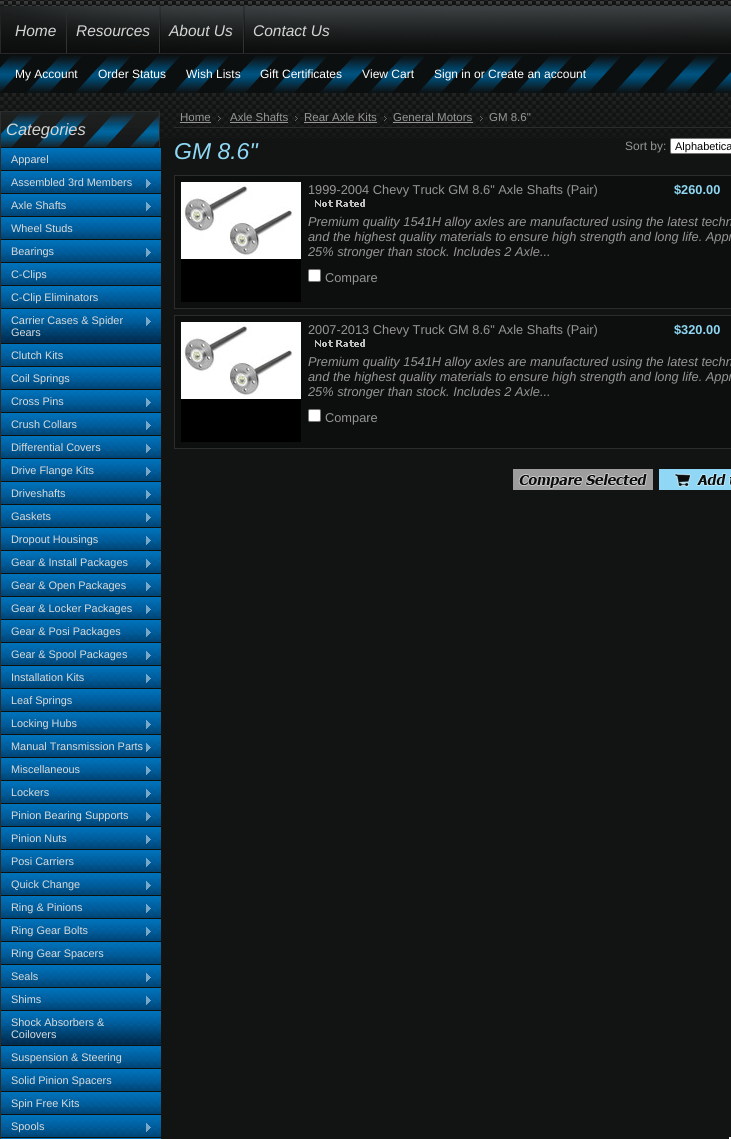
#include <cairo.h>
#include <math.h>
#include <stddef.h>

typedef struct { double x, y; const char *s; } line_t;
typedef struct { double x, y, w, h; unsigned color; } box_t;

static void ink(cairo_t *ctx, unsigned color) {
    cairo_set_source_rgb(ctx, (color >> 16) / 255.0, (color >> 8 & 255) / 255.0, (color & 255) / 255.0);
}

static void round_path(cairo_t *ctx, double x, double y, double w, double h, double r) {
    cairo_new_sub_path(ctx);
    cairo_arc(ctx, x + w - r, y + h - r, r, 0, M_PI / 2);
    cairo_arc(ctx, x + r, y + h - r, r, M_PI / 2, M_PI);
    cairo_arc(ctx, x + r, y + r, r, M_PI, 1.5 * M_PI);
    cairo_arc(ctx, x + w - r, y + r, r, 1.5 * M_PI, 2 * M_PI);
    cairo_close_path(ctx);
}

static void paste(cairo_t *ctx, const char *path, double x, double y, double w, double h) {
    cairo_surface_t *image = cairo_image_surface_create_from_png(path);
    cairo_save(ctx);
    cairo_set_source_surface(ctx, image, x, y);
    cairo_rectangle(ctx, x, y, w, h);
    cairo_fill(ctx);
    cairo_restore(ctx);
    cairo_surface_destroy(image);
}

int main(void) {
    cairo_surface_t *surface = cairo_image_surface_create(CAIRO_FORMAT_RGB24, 731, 1139);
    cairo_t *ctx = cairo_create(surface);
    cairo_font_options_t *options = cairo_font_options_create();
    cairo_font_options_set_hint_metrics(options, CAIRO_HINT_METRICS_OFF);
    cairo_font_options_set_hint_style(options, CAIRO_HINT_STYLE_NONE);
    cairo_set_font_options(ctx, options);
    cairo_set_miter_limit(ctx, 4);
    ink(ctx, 0x111413);
    cairo_paint(ctx);
    paste(ctx, "media/1.png", 0, 0, 731, 138);
    paste(ctx, "media/2.png", 0, 6, 731, 48);
    cairo_select_font_face(ctx, "Liberation Sans", CAIRO_FONT_SLANT_ITALIC, CAIRO_FONT_WEIGHT_NORMAL);
    cairo_set_font_size(ctx, 15.5);
    ink(ctx, 0xD4D4D4);
    cairo_move_to(ctx, 15, 36);
    cairo_show_text(ctx, "Home");
    paste(ctx, "media/3.png", 66, 13, 1, 40);
    cairo_move_to(ctx, 76, 36);
    cairo_show_text(ctx, "Resources");
    paste(ctx, "media/4.png", 159, 6, 2, 47);
    cairo_move_to(ctx, 169, 36);
    cairo_show_text(ctx, "About Us");
    paste(ctx, "media/4.png", 243, 6, 2, 47);
    cairo_move_to(ctx, 253, 36);
    cairo_show_text(ctx, "Contact Us");
    ink(ctx, 0x0C0F0F);
    cairo_rectangle(ctx, 0, 54, 731, 1);
    cairo_fill(ctx);
    paste(ctx, "media/5.png", 0, 55, 731, 38);
    cairo_select_font_face(ctx, "Liberation Sans", CAIRO_FONT_SLANT_NORMAL, CAIRO_FONT_WEIGHT_NORMAL);
    cairo_set_font_size(ctx, 12);
    ink(ctx, 0xFFFFFF);
    {
        static const line_t items[] = {
            {15, 78, "My Account"},
            {98, 78, "Order Status"},
            {186, 78, "Wish Lists"},
            {260, 78, "Gift Certificates"},
            {362, 78, "View Cart"},
            {434, 78, "Sign in or Create an account"},
        };
        for (size_t i = 0; i < sizeof items / sizeof *items; i++) {
            cairo_move_to(ctx, items[i].x, items[i].y);
            cairo_show_text(ctx, items[i].s);
        }
    }
    cairo_rectangle(ctx, 0.5, 111.5, 159, 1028);
    ink(ctx, 0x2C2C2C);
    cairo_set_line_width(ctx, 1);
    cairo_stroke(ctx);
    paste(ctx, "media/6.png", 1, 112, 158, 35);
    cairo_select_font_face(ctx, "Liberation Sans", CAIRO_FONT_SLANT_ITALIC, CAIRO_FONT_WEIGHT_NORMAL);
    cairo_set_font_size(ctx, 16.5);
    ink(ctx, 0xD4D4D4);
    cairo_move_to(ctx, 6, 135);
    cairo_show_text(ctx, "Categories");
    paste(ctx, "media/7.png", 1, 148, 160, 22);
    ink(ctx, 0x0D110E);
    cairo_rectangle(ctx, 1, 147, 160, 1);
    cairo_fill(ctx);
    cairo_select_font_face(ctx, "Liberation Sans", CAIRO_FONT_SLANT_NORMAL, CAIRO_FONT_WEIGHT_NORMAL);
    cairo_set_font_size(ctx, 10.9);
    ink(ctx, 0xDADADA);
    cairo_move_to(ctx, 11, 163);
    cairo_show_text(ctx, "Apparel");
    paste(ctx, "media/7.png", 1, 171, 160, 22);
    ink(ctx, 0x0D110E);
    cairo_rectangle(ctx, 1, 170, 160, 1);
    cairo_fill(ctx);
    ink(ctx, 0xDADADA);
    cairo_move_to(ctx, 11, 186);
    cairo_show_text(ctx, "Assembled 3rd Members");
    paste(ctx, "media/8.png", 146, 179, 5, 9);
    paste(ctx, "media/7.png", 1, 194, 160, 22);
    ink(ctx, 0x0D110E);
    cairo_rectangle(ctx, 1, 193, 160, 1);
    cairo_fill(ctx);
    ink(ctx, 0xDADADA);
    cairo_move_to(ctx, 11, 209);
    cairo_show_text(ctx, "Axle Shafts");
    paste(ctx, "media/8.png", 146, 202, 5, 9);
    paste(ctx, "media/7.png", 1, 217, 160, 22);
    ink(ctx, 0x0D110E);
    cairo_rectangle(ctx, 1, 216, 160, 1);
    cairo_fill(ctx);
    ink(ctx, 0xDADADA);
    cairo_move_to(ctx, 11, 232);
    cairo_show_text(ctx, "Wheel Studs");
    paste(ctx, "media/7.png", 1, 240, 160, 22);
    ink(ctx, 0x0D110E);
    cairo_rectangle(ctx, 1, 239, 160, 1);
    cairo_fill(ctx);
    ink(ctx, 0xDADADA);
    cairo_move_to(ctx, 11, 255);
    cairo_show_text(ctx, "Bearings");
    paste(ctx, "media/8.png", 146, 248, 5, 9);
    paste(ctx, "media/7.png", 1, 263, 160, 22);
    ink(ctx, 0x0D110E);
    cairo_rectangle(ctx, 1, 262, 160, 1);
    cairo_fill(ctx);
    ink(ctx, 0xDADADA);
    cairo_move_to(ctx, 11, 278);
    cairo_show_text(ctx, "C-Clips");
    paste(ctx, "media/7.png", 1, 286, 160, 22);
    ink(ctx, 0x0D110E);
    cairo_rectangle(ctx, 1, 285, 160, 1);
    cairo_fill(ctx);
    ink(ctx, 0xDADADA);
    cairo_move_to(ctx, 11, 301);
    cairo_show_text(ctx, "C-Clip Eliminators");
    ink(ctx, 0x002D51);
    cairo_rectangle(ctx, 1, 341, 160, 2);
    cairo_fill(ctx);
    paste(ctx, "media/9.png", 1, 309, 160, 32);
    ink(ctx, 0x0D110E);
    cairo_rectangle(ctx, 1, 308, 160, 1);
    cairo_fill(ctx);
    ink(ctx, 0xDADADA);
    cairo_move_to(ctx, 11, 324);
    cairo_show_text(ctx, "Carrier Cases & Spider");
    paste(ctx, "media/8.png", 146, 317, 5, 9);
    cairo_move_to(ctx, 11, 336);
    cairo_show_text(ctx, "Gears");
    paste(ctx, "media/7.png", 1, 344, 160, 22);
    ink(ctx, 0x0D110E);
    cairo_rectangle(ctx, 1, 343, 160, 1);
    cairo_fill(ctx);
    ink(ctx, 0xDADADA);
    cairo_move_to(ctx, 11, 359);
    cairo_show_text(ctx, "Clutch Kits");
    paste(ctx, "media/7.png", 1, 367, 160, 22);
    ink(ctx, 0x0D110E);
    cairo_rectangle(ctx, 1, 366, 160, 1);
    cairo_fill(ctx);
    ink(ctx, 0xDADADA);
    cairo_move_to(ctx, 11, 382);
    cairo_show_text(ctx, "Coil Springs");
    paste(ctx, "media/7.png", 1, 390, 160, 22);
    ink(ctx, 0x0D110E);
    cairo_rectangle(ctx, 1, 389, 160, 1);
    cairo_fill(ctx);
    ink(ctx, 0xDADADA);
    cairo_move_to(ctx, 11, 405);
    cairo_show_text(ctx, "Cross Pins");
    paste(ctx, "media/8.png", 146, 398, 5, 9);
    paste(ctx, "media/7.png", 1, 413, 160, 22);
    ink(ctx, 0x0D110E);
    cairo_rectangle(ctx, 1, 412, 160, 1);
    cairo_fill(ctx);
    ink(ctx, 0xDADADA);
    cairo_move_to(ctx, 11, 428);
    cairo_show_text(ctx, "Crush Collars");
    paste(ctx, "media/8.png", 146, 421, 5, 9);
    paste(ctx, "media/7.png", 1, 436, 160, 22);
    ink(ctx, 0x0D110E);
    cairo_rectangle(ctx, 1, 435, 160, 1);
    cairo_fill(ctx);
    ink(ctx, 0xDADADA);
    cairo_move_to(ctx, 11, 451);
    cairo_show_text(ctx, "Differential Covers");
    paste(ctx, "media/8.png", 146, 444, 5, 9);
    paste(ctx, "media/7.png", 1, 459, 160, 22);
    ink(ctx, 0x0D110E);
    cairo_rectangle(ctx, 1, 458, 160, 1);
    cairo_fill(ctx);
    ink(ctx, 0xDADADA);
    cairo_move_to(ctx, 11, 474);
    cairo_show_text(ctx, "Drive Flange Kits");
    paste(ctx, "media/8.png", 146, 467, 5, 9);
    paste(ctx, "media/7.png", 1, 482, 160, 22);
    ink(ctx, 0x0D110E);
    cairo_rectangle(ctx, 1, 481, 160, 1);
    cairo_fill(ctx);
    ink(ctx, 0xDADADA);
    cairo_move_to(ctx, 11, 497);
    cairo_show_text(ctx, "Driveshafts");
    paste(ctx, "media/8.png", 146, 490, 5, 9);
    paste(ctx, "media/7.png", 1, 505, 160, 22);
    ink(ctx, 0x0D110E);
    cairo_rectangle(ctx, 1, 504, 160, 1);
    cairo_fill(ctx);
    ink(ctx, 0xDADADA);
    cairo_move_to(ctx, 11, 520);
    cairo_show_text(ctx, "Gaskets");
    paste(ctx, "media/8.png", 146, 513, 5, 9);
    paste(ctx, "media/7.png", 1, 528, 160, 22);
    ink(ctx, 0x0D110E);
    cairo_rectangle(ctx, 1, 527, 160, 1);
    cairo_fill(ctx);
    ink(ctx, 0xDADADA);
    cairo_move_to(ctx, 11, 543);
    cairo_show_text(ctx, "Dropout Housings");
    paste(ctx, "media/8.png", 146, 536, 5, 9);
    paste(ctx, "media/7.png", 1, 551, 160, 22);
    ink(ctx, 0x0D110E);
    cairo_rectangle(ctx, 1, 550, 160, 1);
    cairo_fill(ctx);
    ink(ctx, 0xDADADA);
    cairo_move_to(ctx, 11, 566);
    cairo_show_text(ctx, "Gear & Install Packages");
    paste(ctx, "media/8.png", 146, 559, 5, 9);
    paste(ctx, "media/7.png", 1, 574, 160, 22);
    ink(ctx, 0x0D110E);
    cairo_rectangle(ctx, 1, 573, 160, 1);
    cairo_fill(ctx);
    ink(ctx, 0xDADADA);
    cairo_move_to(ctx, 11, 589);
    cairo_show_text(ctx, "Gear & Open Packages");
    paste(ctx, "media/8.png", 146, 582, 5, 9);
    paste(ctx, "media/7.png", 1, 597, 160, 22);
    ink(ctx, 0x0D110E);
    cairo_rectangle(ctx, 1, 596, 160, 1);
    cairo_fill(ctx);
    ink(ctx, 0xDADADA);
    cairo_move_to(ctx, 11, 612);
    cairo_show_text(ctx, "Gear & Locker Packages");
    paste(ctx, "media/8.png", 146, 605, 5, 9);
    paste(ctx, "media/7.png", 1, 620, 160, 22);
    ink(ctx, 0x0D110E);
    cairo_rectangle(ctx, 1, 619, 160, 1);
    cairo_fill(ctx);
    ink(ctx, 0xDADADA);
    cairo_move_to(ctx, 11, 635);
    cairo_show_text(ctx, "Gear & Posi Packages");
    paste(ctx, "media/8.png", 146, 628, 5, 9);
    paste(ctx, "media/7.png", 1, 643, 160, 22);
    ink(ctx, 0x0D110E);
    cairo_rectangle(ctx, 1, 642, 160, 1);
    cairo_fill(ctx);
    ink(ctx, 0xDADADA);
    cairo_move_to(ctx, 11, 658);
    cairo_show_text(ctx, "Gear & Spool Packages");
    paste(ctx, "media/8.png", 146, 651, 5, 9);
    paste(ctx, "media/7.png", 1, 666, 160, 22);
    ink(ctx, 0x0D110E);
    cairo_rectangle(ctx, 1, 665, 160, 1);
    cairo_fill(ctx);
    ink(ctx, 0xDADADA);
    cairo_move_to(ctx, 11, 681);
    cairo_show_text(ctx, "Installation Kits");
    paste(ctx, "media/8.png", 146, 674, 5, 9);
    paste(ctx, "media/7.png", 1, 689, 160, 22);
    ink(ctx, 0x0D110E);
    cairo_rectangle(ctx, 1, 688, 160, 1);
    cairo_fill(ctx);
    ink(ctx, 0xDADADA);
    cairo_move_to(ctx, 11, 704);
    cairo_show_text(ctx, "Leaf Springs");
    paste(ctx, "media/7.png", 1, 712, 160, 22);
    ink(ctx, 0x0D110E);
    cairo_rectangle(ctx, 1, 711, 160, 1);
    cairo_fill(ctx);
    ink(ctx, 0xDADADA);
    cairo_move_to(ctx, 11, 727);
    cairo_show_text(ctx, "Locking Hubs");
    paste(ctx, "media/8.png", 146, 720, 5, 9);
    paste(ctx, "media/7.png", 1, 735, 160, 22);
    ink(ctx, 0x0D110E);
    cairo_rectangle(ctx, 1, 734, 160, 1);
    cairo_fill(ctx);
    ink(ctx, 0xDADADA);
    cairo_move_to(ctx, 11, 750);
    cairo_show_text(ctx, "Manual Transmission Parts");
    paste(ctx, "media/8.png", 146, 743, 5, 9);
    paste(ctx, "media/7.png", 1, 758, 160, 22);
    ink(ctx, 0x0D110E);
    cairo_rectangle(ctx, 1, 757, 160, 1);
    cairo_fill(ctx);
    ink(ctx, 0xDADADA);
    cairo_move_to(ctx, 11, 773);
    cairo_show_text(ctx, "Miscellaneous");
    paste(ctx, "media/8.png", 146, 766, 5, 9);
    paste(ctx, "media/7.png", 1, 781, 160, 22);
    ink(ctx, 0x0D110E);
    cairo_rectangle(ctx, 1, 780, 160, 1);
    cairo_fill(ctx);
    ink(ctx, 0xDADADA);
    cairo_move_to(ctx, 11, 796);
    cairo_show_text(ctx, "Lockers");
    paste(ctx, "media/8.png", 146, 789, 5, 9);
    paste(ctx, "media/7.png", 1, 804, 160, 22);
    ink(ctx, 0x0D110E);
    cairo_rectangle(ctx, 1, 803, 160, 1);
    cairo_fill(ctx);
    ink(ctx, 0xDADADA);
    cairo_move_to(ctx, 11, 819);
    cairo_show_text(ctx, "Pinion Bearing Supports");
    paste(ctx, "media/8.png", 146, 812, 5, 9);
    paste(ctx, "media/7.png", 1, 827, 160, 22);
    ink(ctx, 0x0D110E);
    cairo_rectangle(ctx, 1, 826, 160, 1);
    cairo_fill(ctx);
    ink(ctx, 0xDADADA);
    cairo_move_to(ctx, 11, 842);
    cairo_show_text(ctx, "Pinion Nuts");
    paste(ctx, "media/8.png", 146, 835, 5, 9);
    paste(ctx, "media/7.png", 1, 850, 160, 22);
    ink(ctx, 0x0D110E);
    cairo_rectangle(ctx, 1, 849, 160, 1);
    cairo_fill(ctx);
    ink(ctx, 0xDADADA);
    cairo_move_to(ctx, 11, 865);
    cairo_show_text(ctx, "Posi Carriers");
    paste(ctx, "media/8.png", 146, 858, 5, 9);
    paste(ctx, "media/7.png", 1, 873, 160, 22);
    ink(ctx, 0x0D110E);
    cairo_rectangle(ctx, 1, 872, 160, 1);
    cairo_fill(ctx);
    ink(ctx, 0xDADADA);
    cairo_move_to(ctx, 11, 888);
    cairo_show_text(ctx, "Quick Change");
    paste(ctx, "media/8.png", 146, 881, 5, 9);
    paste(ctx, "media/7.png", 1, 896, 160, 22);
    ink(ctx, 0x0D110E);
    cairo_rectangle(ctx, 1, 895, 160, 1);
    cairo_fill(ctx);
    ink(ctx, 0xDADADA);
    cairo_move_to(ctx, 11, 911);
    cairo_show_text(ctx, "Ring & Pinions");
    paste(ctx, "media/8.png", 146, 904, 5, 9);
    paste(ctx, "media/7.png", 1, 919, 160, 22);
    ink(ctx, 0x0D110E);
    cairo_rectangle(ctx, 1, 918, 160, 1);
    cairo_fill(ctx);
    ink(ctx, 0xDADADA);
    cairo_move_to(ctx, 11, 934);
    cairo_show_text(ctx, "Ring Gear Bolts");
    paste(ctx, "media/8.png", 146, 927, 5, 9);
    paste(ctx, "media/7.png", 1, 942, 160, 22);
    ink(ctx, 0x0D110E);
    cairo_rectangle(ctx, 1, 941, 160, 1);
    cairo_fill(ctx);
    ink(ctx, 0xDADADA);
    cairo_move_to(ctx, 11, 957);
    cairo_show_text(ctx, "Ring Gear Spacers");
    paste(ctx, "media/7.png", 1, 965, 160, 22);
    ink(ctx, 0x0D110E);
    cairo_rectangle(ctx, 1, 964, 160, 1);
    cairo_fill(ctx);
    ink(ctx, 0xDADADA);
    cairo_move_to(ctx, 11, 980);
    cairo_show_text(ctx, "Seals");
    paste(ctx, "media/8.png", 146, 973, 5, 9);
    paste(ctx, "media/7.png", 1, 988, 160, 22);
    ink(ctx, 0x0D110E);
    cairo_rectangle(ctx, 1, 987, 160, 1);
    cairo_fill(ctx);
    ink(ctx, 0xDADADA);
    cairo_move_to(ctx, 11, 1003);
    cairo_show_text(ctx, "Shims");
    paste(ctx, "media/8.png", 146, 996, 5, 9);
    ink(ctx, 0x002D51);
    cairo_rectangle(ctx, 1, 1043, 160, 2);
    cairo_fill(ctx);
    paste(ctx, "media/9.png", 1, 1011, 160, 32);
    ink(ctx, 0x0D110E);
    cairo_rectangle(ctx, 1, 1010, 160, 1);
    cairo_fill(ctx);
    ink(ctx, 0xDADADA);
    cairo_move_to(ctx, 11, 1026);
    cairo_show_text(ctx, "Shock Absorbers &");
    cairo_move_to(ctx, 11, 1038);
    cairo_show_text(ctx, "Coilovers");
    paste(ctx, "media/7.png", 1, 1046, 160, 22);
    ink(ctx, 0x0D110E);
    cairo_rectangle(ctx, 1, 1045, 160, 1);
    cairo_fill(ctx);
    ink(ctx, 0xDADADA);
    cairo_move_to(ctx, 11, 1061);
    cairo_show_text(ctx, "Suspension & Steering");
    paste(ctx, "media/7.png", 1, 1069, 160, 22);
    ink(ctx, 0x0D110E);
    cairo_rectangle(ctx, 1, 1068, 160, 1);
    cairo_fill(ctx);
    ink(ctx, 0xDADADA);
    cairo_move_to(ctx, 11, 1084);
    cairo_show_text(ctx, "Solid Pinion Spacers");
    paste(ctx, "media/7.png", 1, 1092, 160, 22);
    ink(ctx, 0x0D110E);
    cairo_rectangle(ctx, 1, 1091, 160, 1);
    cairo_fill(ctx);
    ink(ctx, 0xDADADA);
    cairo_move_to(ctx, 11, 1107);
    cairo_show_text(ctx, "Spin Free Kits");
    paste(ctx, "media/7.png", 1, 1115, 160, 22);
    ink(ctx, 0x0D110E);
    cairo_rectangle(ctx, 1, 1114, 160, 1);
    cairo_fill(ctx);
    ink(ctx, 0xDADADA);
    cairo_move_to(ctx, 11, 1130);
    cairo_show_text(ctx, "Spools");
    paste(ctx, "media/8.png", 146, 1123, 5, 9);
    {
        static const box_t items[] = {
            {1, 1138, 160, 1, 0x0072BB},
            {1, 1137, 160, 1, 0x0D110E},
            {174, 127, 557, 1, 0x2C2C2C},
        };
        for (size_t i = 0; i < sizeof items / sizeof *items; i++) {
            ink(ctx, items[i].color);
            cairo_rectangle(ctx, items[i].x, items[i].y, items[i].w, items[i].h);
            cairo_fill(ctx);
        }
    }
    cairo_set_font_size(ctx, 11.5);
    ink(ctx, 0x959595);
    cairo_move_to(ctx, 180, 121);
    cairo_show_text(ctx, "Home");
    cairo_rectangle(ctx, 180, 122, 31, 1);
    cairo_fill(ctx);
    paste(ctx, "media/10.png", 218, 116, 3, 5);
    cairo_move_to(ctx, 230, 121);
    cairo_show_text(ctx, "Axle Shafts");
    cairo_rectangle(ctx, 230, 122, 58, 1);
    cairo_fill(ctx);
    paste(ctx, "media/11.png", 295, 116, 3, 5);
    cairo_move_to(ctx, 304, 121);
    cairo_show_text(ctx, "Rear Axle Kits");
    cairo_rectangle(ctx, 304, 122, 73, 1);
    cairo_fill(ctx);
    paste(ctx, "media/12.png", 384, 116, 3, 5);
    cairo_move_to(ctx, 393, 121);
    cairo_show_text(ctx, "General Motors");
    cairo_rectangle(ctx, 393, 122, 80, 1);
    cairo_fill(ctx);
    paste(ctx, "media/12.png", 480, 116, 3, 5);
    cairo_move_to(ctx, 489, 121);
    cairo_show_text(ctx, "GM 8.6\"");
    cairo_select_font_face(ctx, "Liberation Sans", CAIRO_FONT_SLANT_ITALIC, CAIRO_FONT_WEIGHT_NORMAL);
    cairo_set_font_size(ctx, 23);
    ink(ctx, 0x8FD7F4);
    cairo_move_to(ctx, 174, 159);
    cairo_show_text(ctx, "GM 8.6\"");
    cairo_select_font_face(ctx, "Liberation Sans", CAIRO_FONT_SLANT_NORMAL, CAIRO_FONT_WEIGHT_NORMAL);
    cairo_set_font_size(ctx, 12);
    ink(ctx, 0x959595);
    cairo_move_to(ctx, 625, 150);
    cairo_show_text(ctx, "Sort by:");
    ink(ctx, 0xFFFFFF);
    round_path(ctx, 670.5, 138.5, 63, 15, 1.5);
    cairo_fill_preserve(ctx);
    ink(ctx, 0x767676);
    cairo_stroke(ctx);
    cairo_set_font_size(ctx, 11);
    ink(ctx, 0x000000);
    cairo_move_to(ctx, 675, 150);
    cairo_show_text(ctx, "Alphabetica");
    ink(ctx, 0x0C0F0D);
    cairo_rectangle(ctx, 174.5, 175.5, 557, 133);
    cairo_fill_preserve(ctx);
    ink(ctx, 0x2C2C2C);
    cairo_stroke(ctx);
    ink(ctx, 0x000000);
    cairo_rectangle(ctx, 181, 259, 120, 43);
    cairo_fill(ctx);
    paste(ctx, "media/13.png", 181, 182, 120, 77);
    cairo_set_font_size(ctx, 12.8);
    ink(ctx, 0x959595);
    cairo_move_to(ctx, 308, 194);
    cairo_show_text(ctx, "1999-2004 Chevy Truck GM 8.6\" Axle Shafts (Pair)");
    cairo_select_font_face(ctx, "Liberation Sans", CAIRO_FONT_SLANT_NORMAL, CAIRO_FONT_WEIGHT_BOLD);
    ink(ctx, 0x8FD7F4);
    cairo_move_to(ctx, 674, 194);
    cairo_show_text(ctx, "$260.00");
    paste(ctx, "media/14.png", 315, 199, 50, 8);
    cairo_select_font_face(ctx, "Liberation Sans", CAIRO_FONT_SLANT_ITALIC, CAIRO_FONT_WEIGHT_NORMAL);
    ink(ctx, 0x959595);
    {
        static const line_t items[] = {
            {308, 226, "Premium quality 1541H alloy axles are manufactured using the latest techn"},
            {308, 241, "and the highest quality materials to ensure high strength and long life. Appr"},
            {308, 256, "25% stronger than stock. Includes 2 Axle..."},
        };
        for (size_t i = 0; i < sizeof items / sizeof *items; i++) {
            cairo_move_to(ctx, items[i].x, items[i].y);
            cairo_show_text(ctx, items[i].s);
        }
    }
    ink(ctx, 0xFFFFFF);
    round_path(ctx, 308.5, 269.5, 12, 12, 1.5);
    cairo_fill_preserve(ctx);
    ink(ctx, 0x767676);
    cairo_stroke(ctx);
    cairo_select_font_face(ctx, "Liberation Sans", CAIRO_FONT_SLANT_NORMAL, CAIRO_FONT_WEIGHT_NORMAL);
    ink(ctx, 0x959595);
    cairo_move_to(ctx, 325, 282);
    cairo_show_text(ctx, "Compare");
    ink(ctx, 0x0C0F0D);
    cairo_rectangle(ctx, 174.5, 315.5, 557, 133);
    cairo_fill_preserve(ctx);
    ink(ctx, 0x2C2C2C);
    cairo_stroke(ctx);
    ink(ctx, 0x000000);
    cairo_rectangle(ctx, 181, 399, 120, 43);
    cairo_fill(ctx);
    paste(ctx, "media/13.png", 181, 322, 120, 77);
    ink(ctx, 0x959595);
    cairo_move_to(ctx, 308, 334);
    cairo_show_text(ctx, "2007-2013 Chevy Truck GM 8.6\" Axle Shafts (Pair)");
    cairo_select_font_face(ctx, "Liberation Sans", CAIRO_FONT_SLANT_NORMAL, CAIRO_FONT_WEIGHT_BOLD);
    ink(ctx, 0x8FD7F4);
    cairo_move_to(ctx, 674, 334);
    cairo_show_text(ctx, "$320.00");
    paste(ctx, "media/14.png", 315, 339, 50, 8);
    cairo_select_font_face(ctx, "Liberation Sans", CAIRO_FONT_SLANT_ITALIC, CAIRO_FONT_WEIGHT_NORMAL);
    ink(ctx, 0x959595);
    {
        static const line_t items[] = {
            {308, 366, "Premium quality 1541H alloy axles are manufactured using the latest techn"},
            {308, 381, "and the highest quality materials to ensure high strength and long life. Appr"},
            {308, 396, "25% stronger than stock. Includes 2 Axle..."},
        };
        for (size_t i = 0; i < sizeof items / sizeof *items; i++) {
            cairo_move_to(ctx, items[i].x, items[i].y);
            cairo_show_text(ctx, items[i].s);
        }
    }
    ink(ctx, 0xFFFFFF);
    round_path(ctx, 308.5, 409.5, 12, 12, 1.5);
    cairo_fill_preserve(ctx);
    ink(ctx, 0x767676);
    cairo_stroke(ctx);
    cairo_select_font_face(ctx, "Liberation Sans", CAIRO_FONT_SLANT_NORMAL, CAIRO_FONT_WEIGHT_NORMAL);
    ink(ctx, 0x959595);
    cairo_move_to(ctx, 325, 422);
    cairo_show_text(ctx, "Compare");
    paste(ctx, "media/15.png", 513, 469, 140, 21);
    paste(ctx, "media/16.png", 659, 469, 72, 21);
    ink(ctx, 0xF5F5F5);
    cairo_rectangle(ctx, 729, 1137, 2, 2);
    cairo_fill(ctx);
    cairo_surface_write_to_png(surface, "image.png");
    cairo_font_options_destroy(options);
    cairo_destroy(ctx);
    cairo_surface_destroy(surface);
    return 0;
}
